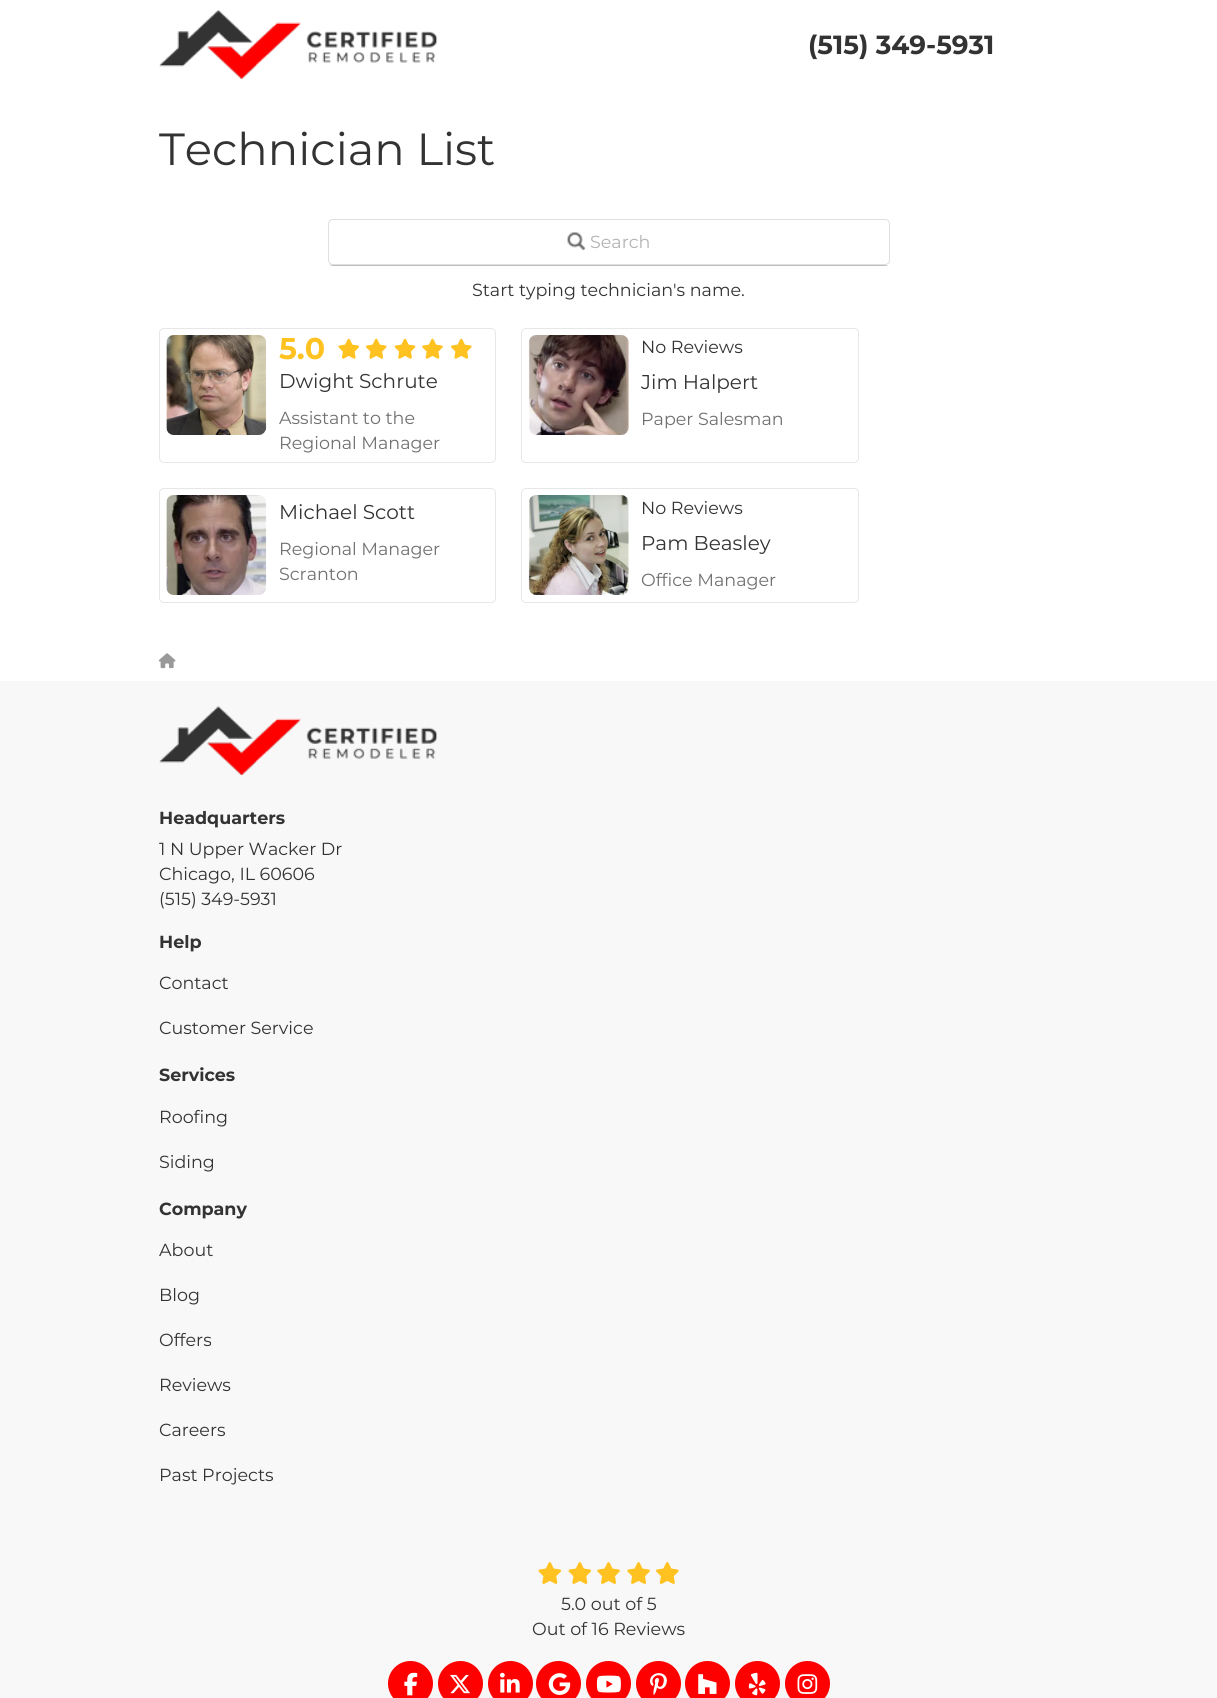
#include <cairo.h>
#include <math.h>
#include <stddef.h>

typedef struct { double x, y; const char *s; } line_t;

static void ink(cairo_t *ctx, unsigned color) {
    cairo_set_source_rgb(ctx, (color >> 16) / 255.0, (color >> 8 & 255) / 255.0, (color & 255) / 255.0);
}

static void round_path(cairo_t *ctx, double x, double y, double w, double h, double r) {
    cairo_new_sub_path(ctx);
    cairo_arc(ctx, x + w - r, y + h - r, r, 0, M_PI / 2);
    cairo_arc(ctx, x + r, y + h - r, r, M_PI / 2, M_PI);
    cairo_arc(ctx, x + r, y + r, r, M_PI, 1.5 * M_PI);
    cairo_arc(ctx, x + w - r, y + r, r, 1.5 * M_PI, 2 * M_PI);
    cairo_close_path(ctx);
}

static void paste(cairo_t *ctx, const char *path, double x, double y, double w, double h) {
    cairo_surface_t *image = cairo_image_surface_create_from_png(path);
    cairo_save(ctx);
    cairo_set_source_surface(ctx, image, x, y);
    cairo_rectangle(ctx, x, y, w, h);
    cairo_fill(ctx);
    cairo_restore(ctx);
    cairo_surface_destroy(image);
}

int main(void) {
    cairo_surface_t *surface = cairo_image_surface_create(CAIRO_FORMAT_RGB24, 1217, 1698);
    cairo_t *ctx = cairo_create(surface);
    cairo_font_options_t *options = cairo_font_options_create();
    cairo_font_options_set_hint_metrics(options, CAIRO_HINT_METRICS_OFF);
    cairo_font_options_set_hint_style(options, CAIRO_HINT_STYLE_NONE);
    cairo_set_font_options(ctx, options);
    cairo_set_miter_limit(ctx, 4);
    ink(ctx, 0xFFFFFF);
    cairo_paint(ctx);
    paste(ctx, "media/1.png", 159, 10, 279, 69);
    cairo_select_font_face(ctx, "Montserrat", CAIRO_FONT_SLANT_NORMAL, CAIRO_FONT_WEIGHT_BOLD);
    cairo_set_font_size(ctx, 26.25);
    ink(ctx, 0x333333);
    cairo_move_to(ctx, 808, 54);
    cairo_show_text(ctx, "(515) 349-5931");
    cairo_select_font_face(ctx, "Montserrat", CAIRO_FONT_SLANT_NORMAL, CAIRO_FONT_WEIGHT_NORMAL);
    cairo_set_font_size(ctx, 45);
    cairo_move_to(ctx, 159, 165);
    cairo_show_text(ctx, "Technician List");
    ink(ctx, 0xBFBEBF);
    cairo_new_path(ctx);
    cairo_move_to(ctx, 329, 264);
    cairo_line_to(ctx, 332, 266);
    cairo_line_to(ctx, 885, 266);
    cairo_curve_to(ctx, 888, 266, 890, 263, 890, 261);
    cairo_curve_to(ctx, 890, 263, 889, 265, 887, 265);
    cairo_line_to(ctx, 332, 265);
    cairo_close_path(ctx);
    cairo_fill(ctx);
    ink(ctx, 0xFFFFFF);
    round_path(ctx, 328.5, 219.5, 561, 45, 4.5);
    cairo_fill_preserve(ctx);
    ink(ctx, 0xDFDFDF);
    cairo_set_line_width(ctx, 1);
    cairo_stroke(ctx);
    paste(ctx, "media/2.png", 567, 232, 19, 18);
    cairo_set_font_size(ctx, 17.5);
    ink(ctx, 0xB2B2B2);
    cairo_move_to(ctx, 590, 248);
    cairo_show_text(ctx, "Search");
    ink(ctx, 0x333333);
    cairo_move_to(ctx, 472, 296);
    cairo_show_text(ctx, "Start typing technician's name.");
    round_path(ctx, 159.5, 328.5, 336, 134, 4.5);
    ink(ctx, 0xE7E7E7);
    cairo_stroke(ctx);
    paste(ctx, "media/3.png", 166, 335, 101, 100);
    cairo_select_font_face(ctx, "Montserrat", CAIRO_FONT_SLANT_NORMAL, CAIRO_FONT_WEIGHT_BOLD);
    cairo_set_font_size(ctx, 30);
    ink(ctx, 0xFFC221);
    cairo_move_to(ctx, 279, 359);
    cairo_show_text(ctx, "5.0");
    paste(ctx, "media/4.png", 338, 338, 22, 21);
    paste(ctx, "media/5.png", 366, 338, 21, 21);
    paste(ctx, "media/6.png", 394, 338, 22, 21);
    paste(ctx, "media/7.png", 422, 338, 21, 21);
    paste(ctx, "media/5.png", 451, 338, 21, 21);
    cairo_select_font_face(ctx, "Montserrat", CAIRO_FONT_SLANT_NORMAL, CAIRO_FONT_WEIGHT_NORMAL);
    cairo_set_font_size(ctx, 20);
    ink(ctx, 0x333333);
    cairo_move_to(ctx, 279, 388);
    cairo_show_text(ctx, "Dwight Schrute");
    cairo_set_font_size(ctx, 17.5);
    ink(ctx, 0x707070);
    cairo_move_to(ctx, 279, 424);
    cairo_show_text(ctx, "Assistant to the");
    cairo_move_to(ctx, 279, 449);
    cairo_show_text(ctx, "Regional Manager");
    round_path(ctx, 521.5, 328.5, 337, 134, 4.5);
    ink(ctx, 0xE7E7E7);
    cairo_stroke(ctx);
    paste(ctx, "media/8.png", 528, 335, 101, 100);
    ink(ctx, 0x333333);
    cairo_move_to(ctx, 641, 353);
    cairo_show_text(ctx, "No Reviews");
    cairo_set_font_size(ctx, 20);
    cairo_move_to(ctx, 641, 389);
    cairo_show_text(ctx, "Jim Halpert");
    cairo_set_font_size(ctx, 17.5);
    ink(ctx, 0x707070);
    cairo_move_to(ctx, 641, 425);
    cairo_show_text(ctx, "Paper Salesman");
    round_path(ctx, 159.5, 488.5, 336, 114, 4.5);
    ink(ctx, 0xE7E7E7);
    cairo_stroke(ctx);
    paste(ctx, "media/9.png", 166, 495, 101, 100);
    cairo_set_font_size(ctx, 20);
    ink(ctx, 0x333333);
    cairo_move_to(ctx, 279, 519);
    cairo_show_text(ctx, "Michael Scott");
    cairo_set_font_size(ctx, 17.5);
    ink(ctx, 0x707070);
    cairo_move_to(ctx, 279, 555);
    cairo_show_text(ctx, "Regional Manager");
    cairo_move_to(ctx, 279, 580);
    cairo_show_text(ctx, "Scranton");
    round_path(ctx, 521.5, 488.5, 337, 114, 4.5);
    ink(ctx, 0xE7E7E7);
    cairo_stroke(ctx);
    paste(ctx, "media/10.png", 528, 495, 101, 100);
    ink(ctx, 0x333333);
    cairo_move_to(ctx, 641, 514);
    cairo_show_text(ctx, "No Reviews");
    cairo_set_font_size(ctx, 20);
    cairo_move_to(ctx, 641, 550);
    cairo_show_text(ctx, "Pam Beasley");
    cairo_set_font_size(ctx, 17.5);
    ink(ctx, 0x707070);
    cairo_move_to(ctx, 641, 586);
    cairo_show_text(ctx, "Office Manager");
    paste(ctx, "media/11.png", 158, 653, 18, 16);
    ink(ctx, 0xF8F8F8);
    cairo_rectangle(ctx, 0, 681, 1217, 1017);
    cairo_fill(ctx);
    paste(ctx, "media/12.png", 159, 706, 279, 69);
    cairo_select_font_face(ctx, "Montserrat", CAIRO_FONT_SLANT_NORMAL, CAIRO_FONT_WEIGHT_BOLD);
    ink(ctx, 0x333333);
    cairo_move_to(ctx, 159, 824);
    cairo_show_text(ctx, "Headquarters");
    cairo_select_font_face(ctx, "Montserrat", CAIRO_FONT_SLANT_NORMAL, CAIRO_FONT_WEIGHT_NORMAL);
    {
        static const line_t items[] = {
            {159, 855, "1 N Upper Wacker Dr"},
            {159, 880, "Chicago, IL 60606"},
            {159, 905, "(515) 349-5931"},
        };
        for (size_t i = 0; i < sizeof items / sizeof *items; i++) {
            cairo_move_to(ctx, items[i].x, items[i].y);
            cairo_show_text(ctx, items[i].s);
        }
    }
    cairo_select_font_face(ctx, "Montserrat", CAIRO_FONT_SLANT_NORMAL, CAIRO_FONT_WEIGHT_BOLD);
    cairo_move_to(ctx, 159, 948);
    cairo_show_text(ctx, "Help");
    cairo_select_font_face(ctx, "Montserrat", CAIRO_FONT_SLANT_NORMAL, CAIRO_FONT_WEIGHT_NORMAL);
    cairo_move_to(ctx, 159, 989);
    cairo_show_text(ctx, "Contact");
    cairo_move_to(ctx, 159, 1034);
    cairo_show_text(ctx, "Customer Service");
    cairo_select_font_face(ctx, "Montserrat", CAIRO_FONT_SLANT_NORMAL, CAIRO_FONT_WEIGHT_BOLD);
    cairo_move_to(ctx, 159, 1081);
    cairo_show_text(ctx, "Services");
    cairo_select_font_face(ctx, "Montserrat", CAIRO_FONT_SLANT_NORMAL, CAIRO_FONT_WEIGHT_NORMAL);
    cairo_move_to(ctx, 159, 1123);
    cairo_show_text(ctx, "Roofing");
    cairo_move_to(ctx, 159, 1168);
    cairo_show_text(ctx, "Siding");
    cairo_select_font_face(ctx, "Montserrat", CAIRO_FONT_SLANT_NORMAL, CAIRO_FONT_WEIGHT_BOLD);
    cairo_move_to(ctx, 159, 1215);
    cairo_show_text(ctx, "Company");
    cairo_select_font_face(ctx, "Montserrat", CAIRO_FONT_SLANT_NORMAL, CAIRO_FONT_WEIGHT_NORMAL);
    {
        static const line_t items[] = {
            {159, 1256, "About"},
            {159, 1301, "Blog"},
            {159, 1346, "Offers"},
            {159, 1391, "Reviews"},
            {159, 1436, "Careers"},
            {159, 1481, "Past Projects"},
        };
        for (size_t i = 0; i < sizeof items / sizeof *items; i++) {
            cairo_move_to(ctx, items[i].x, items[i].y);
            cairo_show_text(ctx, items[i].s);
        }
    }
    paste(ctx, "media/13.png", 538, 1562, 24, 22);
    paste(ctx, "media/13.png", 568, 1562, 24, 22);
    paste(ctx, "media/14.png", 597, 1562, 23, 22);
    paste(ctx, "media/14.png", 627, 1562, 23, 22);
    paste(ctx, "media/15.png", 656, 1562, 23, 22);
    cairo_move_to(ctx, 561, 1610);
    cairo_show_text(ctx, "5.0 out of 5");
    cairo_move_to(ctx, 532, 1635);
    cairo_show_text(ctx, "Out of 16 Reviews");
    ink(ctx, 0xFF0000);
    cairo_new_path(ctx);
    cairo_arc(ctx, 410.5, 1683.5, 22.5, 0, 2 * M_PI);
    cairo_fill(ctx);
    paste(ctx, "media/16.png", 404, 1672, 14, 24);
    cairo_arc(ctx, 460.5, 1683.5, 22.5, 0, 2 * M_PI);
    cairo_fill(ctx);
    paste(ctx, "media/17.png", 450, 1674, 20, 20);
    cairo_arc(ctx, 510.5, 1683.5, 22.5, 0, 2 * M_PI);
    cairo_fill(ctx);
    paste(ctx, "media/18.png", 500, 1672, 20, 21);
    cairo_arc(ctx, 558.5, 1683.5, 22.5, 0, 2 * M_PI);
    cairo_fill(ctx);
    paste(ctx, "media/19.png", 548, 1673, 23, 22);
    cairo_arc(ctx, 608.5, 1683.5, 22.5, 0, 2 * M_PI);
    cairo_fill(ctx);
    paste(ctx, "media/20.png", 596, 1675, 25, 18);
    cairo_arc(ctx, 658.5, 1683.5, 22.5, 0, 2 * M_PI);
    cairo_fill(ctx);
    paste(ctx, "media/21.png", 650, 1673, 17, 22);
    cairo_arc(ctx, 707.5, 1683.5, 22.5, 0, 2 * M_PI);
    cairo_fill(ctx);
    paste(ctx, "media/22.png", 698, 1674, 19, 20);
    cairo_arc(ctx, 757.5, 1683.5, 22.5, 0, 2 * M_PI);
    cairo_fill(ctx);
    paste(ctx, "media/23.png", 748, 1672, 18, 24);
    cairo_arc(ctx, 807.5, 1683.5, 22.5, 0, 2 * M_PI);
    cairo_fill(ctx);
    paste(ctx, "media/24.png", 797, 1674, 21, 20);
    cairo_surface_write_to_png(surface, "image.png");
    cairo_font_options_destroy(options);
    cairo_destroy(ctx);
    cairo_surface_destroy(surface);
    return 0;
}
